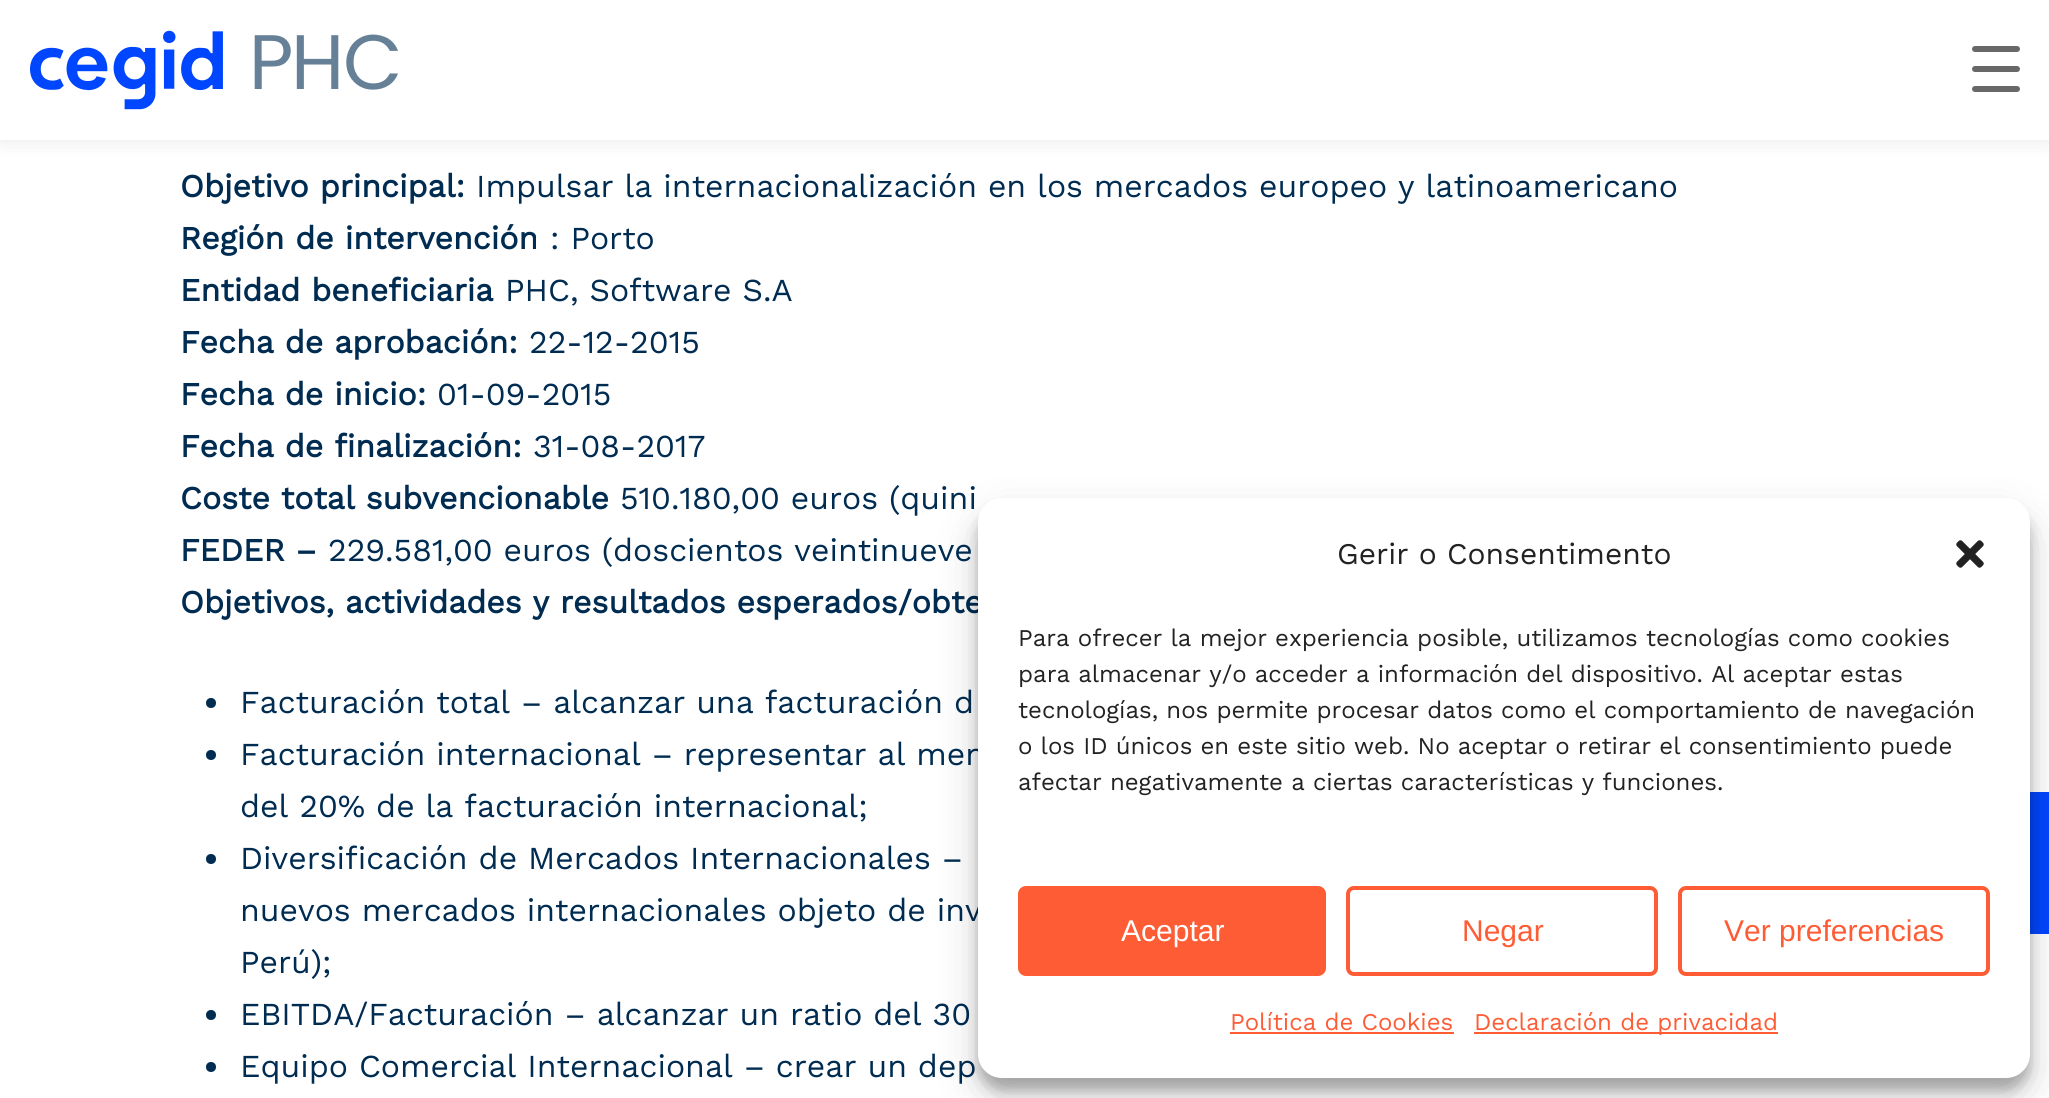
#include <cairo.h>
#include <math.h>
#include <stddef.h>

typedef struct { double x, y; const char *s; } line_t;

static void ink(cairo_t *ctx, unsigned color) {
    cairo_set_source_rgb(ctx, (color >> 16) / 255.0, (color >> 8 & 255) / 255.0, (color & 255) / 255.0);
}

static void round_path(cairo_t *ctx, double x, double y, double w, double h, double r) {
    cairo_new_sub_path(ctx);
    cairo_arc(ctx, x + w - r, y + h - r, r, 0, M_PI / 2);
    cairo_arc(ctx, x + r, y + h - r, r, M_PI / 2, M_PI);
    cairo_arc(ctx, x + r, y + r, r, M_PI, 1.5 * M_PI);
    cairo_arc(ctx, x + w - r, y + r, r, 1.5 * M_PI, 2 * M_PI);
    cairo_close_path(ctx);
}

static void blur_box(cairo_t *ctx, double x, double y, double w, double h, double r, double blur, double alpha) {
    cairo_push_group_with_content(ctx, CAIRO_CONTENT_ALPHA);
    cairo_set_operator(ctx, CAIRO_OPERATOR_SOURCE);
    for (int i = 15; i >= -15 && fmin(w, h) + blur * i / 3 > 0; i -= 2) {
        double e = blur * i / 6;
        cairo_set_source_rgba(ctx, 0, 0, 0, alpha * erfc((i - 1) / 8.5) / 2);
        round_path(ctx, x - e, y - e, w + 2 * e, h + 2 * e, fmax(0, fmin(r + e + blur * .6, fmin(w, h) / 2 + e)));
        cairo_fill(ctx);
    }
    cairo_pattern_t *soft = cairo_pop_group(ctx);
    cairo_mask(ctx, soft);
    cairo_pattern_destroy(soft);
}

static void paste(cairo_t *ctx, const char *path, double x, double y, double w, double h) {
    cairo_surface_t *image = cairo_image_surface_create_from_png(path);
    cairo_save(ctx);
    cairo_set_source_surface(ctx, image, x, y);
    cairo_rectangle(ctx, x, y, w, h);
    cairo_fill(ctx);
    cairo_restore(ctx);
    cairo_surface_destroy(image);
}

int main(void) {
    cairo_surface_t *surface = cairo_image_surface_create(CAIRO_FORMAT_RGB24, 2049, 1098);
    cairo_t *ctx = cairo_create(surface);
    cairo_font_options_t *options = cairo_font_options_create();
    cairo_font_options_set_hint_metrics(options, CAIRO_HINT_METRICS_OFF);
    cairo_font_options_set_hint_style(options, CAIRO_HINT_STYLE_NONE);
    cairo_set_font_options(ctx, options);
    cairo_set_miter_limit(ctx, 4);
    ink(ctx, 0xFFFFFF);
    cairo_paint(ctx);
    ink(ctx, 0x000000);
    blur_box(ctx, 0, 0, 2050, 140, 0, 10, 0.1);
    ink(ctx, 0xFFFFFF);
    cairo_rectangle(ctx, 0, 0, 2049, 140);
    cairo_fill(ctx);
    paste(ctx, "media/1.png", 30, 30, 368, 80);
    ink(ctx, 0x686868);
    round_path(ctx, 1972, 66, 48, 6, 3);
    cairo_fill(ctx);
    round_path(ctx, 1972, 46, 48, 6, 3);
    cairo_fill(ctx);
    round_path(ctx, 1972, 86, 48, 6, 3);
    cairo_fill(ctx);
    cairo_select_font_face(ctx, "Work Sans", CAIRO_FONT_SLANT_NORMAL, CAIRO_FONT_WEIGHT_BOLD);
    cairo_set_font_size(ctx, 32);
    ink(ctx, 0x002C52);
    cairo_move_to(ctx, 180, 197);
    cairo_show_text(ctx, "Objetivo principal:");
    cairo_select_font_face(ctx, "Work Sans", CAIRO_FONT_SLANT_NORMAL, CAIRO_FONT_WEIGHT_NORMAL);
    cairo_move_to(ctx, 476, 197);
    cairo_show_text(ctx, "Impulsar la internacionalización en los mercados europeo y latinoamericano");
    cairo_select_font_face(ctx, "Work Sans", CAIRO_FONT_SLANT_NORMAL, CAIRO_FONT_WEIGHT_BOLD);
    cairo_move_to(ctx, 180, 249);
    cairo_show_text(ctx, "Región de intervención");
    cairo_select_font_face(ctx, "Work Sans", CAIRO_FONT_SLANT_NORMAL, CAIRO_FONT_WEIGHT_NORMAL);
    cairo_move_to(ctx, 550, 249);
    cairo_show_text(ctx, ": Porto");
    cairo_select_font_face(ctx, "Work Sans", CAIRO_FONT_SLANT_NORMAL, CAIRO_FONT_WEIGHT_BOLD);
    cairo_move_to(ctx, 180, 301);
    cairo_show_text(ctx, "Entidad beneficiaria");
    cairo_select_font_face(ctx, "Work Sans", CAIRO_FONT_SLANT_NORMAL, CAIRO_FONT_WEIGHT_NORMAL);
    cairo_move_to(ctx, 505, 301);
    cairo_show_text(ctx, "PHC, Software S.A");
    cairo_select_font_face(ctx, "Work Sans", CAIRO_FONT_SLANT_NORMAL, CAIRO_FONT_WEIGHT_BOLD);
    cairo_move_to(ctx, 180, 353);
    cairo_show_text(ctx, "Fecha de aprobación:");
    cairo_select_font_face(ctx, "Work Sans", CAIRO_FONT_SLANT_NORMAL, CAIRO_FONT_WEIGHT_NORMAL);
    cairo_move_to(ctx, 529, 353);
    cairo_show_text(ctx, "22-12-2015");
    cairo_select_font_face(ctx, "Work Sans", CAIRO_FONT_SLANT_NORMAL, CAIRO_FONT_WEIGHT_BOLD);
    cairo_move_to(ctx, 180, 405);
    cairo_show_text(ctx, "Fecha de inicio:");
    cairo_select_font_face(ctx, "Work Sans", CAIRO_FONT_SLANT_NORMAL, CAIRO_FONT_WEIGHT_NORMAL);
    cairo_move_to(ctx, 437, 405);
    cairo_show_text(ctx, "01-09-2015");
    cairo_select_font_face(ctx, "Work Sans", CAIRO_FONT_SLANT_NORMAL, CAIRO_FONT_WEIGHT_BOLD);
    cairo_move_to(ctx, 180, 457);
    cairo_show_text(ctx, "Fecha de finalización:");
    cairo_select_font_face(ctx, "Work Sans", CAIRO_FONT_SLANT_NORMAL, CAIRO_FONT_WEIGHT_NORMAL);
    cairo_move_to(ctx, 533, 457);
    cairo_show_text(ctx, "31-08-2017");
    cairo_select_font_face(ctx, "Work Sans", CAIRO_FONT_SLANT_NORMAL, CAIRO_FONT_WEIGHT_BOLD);
    cairo_move_to(ctx, 180, 509);
    cairo_show_text(ctx, "Coste total subvencionable");
    cairo_select_font_face(ctx, "Work Sans", CAIRO_FONT_SLANT_NORMAL, CAIRO_FONT_WEIGHT_NORMAL);
    cairo_move_to(ctx, 620, 509);
    cairo_show_text(ctx, "510.180,00 euros (quini");
    cairo_select_font_face(ctx, "Work Sans", CAIRO_FONT_SLANT_NORMAL, CAIRO_FONT_WEIGHT_BOLD);
    cairo_move_to(ctx, 180, 561);
    cairo_show_text(ctx, "FEDER –");
    cairo_select_font_face(ctx, "Work Sans", CAIRO_FONT_SLANT_NORMAL, CAIRO_FONT_WEIGHT_NORMAL);
    cairo_move_to(ctx, 328, 561);
    cairo_show_text(ctx, "229.581,00 euros (doscientos veintinueve");
    cairo_select_font_face(ctx, "Work Sans", CAIRO_FONT_SLANT_NORMAL, CAIRO_FONT_WEIGHT_BOLD);
    cairo_move_to(ctx, 180, 613);
    cairo_show_text(ctx, "Objetivos, actividades y resultados esperados/obte");
    cairo_new_path(ctx);
    cairo_arc(ctx, 211, 703, 5, 0, 2 * M_PI);
    cairo_fill(ctx);
    cairo_select_font_face(ctx, "Work Sans", CAIRO_FONT_SLANT_NORMAL, CAIRO_FONT_WEIGHT_NORMAL);
    cairo_move_to(ctx, 240, 713);
    cairo_show_text(ctx, "Facturación total – alcanzar una facturación d");
    cairo_new_path(ctx);
    cairo_arc(ctx, 211, 755, 5, 0, 2 * M_PI);
    cairo_fill(ctx);
    cairo_move_to(ctx, 240, 765);
    cairo_show_text(ctx, "Facturación internacional – representar al men");
    cairo_move_to(ctx, 240, 817);
    cairo_show_text(ctx, "del 20% de la facturación internacional;");
    cairo_new_path(ctx);
    cairo_arc(ctx, 211, 859, 5, 0, 2 * M_PI);
    cairo_fill(ctx);
    {
        static const line_t items[] = {
            {240, 869, "Diversificación de Mercados Internacionales –"},
            {240, 921, "nuevos mercados internacionales objeto de inv"},
            {240, 973, "Perú);"},
        };
        for (size_t i = 0; i < sizeof items / sizeof *items; i++) {
            cairo_move_to(ctx, items[i].x, items[i].y);
            cairo_show_text(ctx, items[i].s);
        }
    }
    cairo_new_path(ctx);
    cairo_arc(ctx, 211, 1015, 5, 0, 2 * M_PI);
    cairo_fill(ctx);
    cairo_move_to(ctx, 240, 1025);
    cairo_show_text(ctx, "EBITDA/Facturación – alcanzar un ratio del 30");
    cairo_new_path(ctx);
    cairo_arc(ctx, 211, 1067, 5, 0, 2 * M_PI);
    cairo_fill(ctx);
    cairo_move_to(ctx, 240, 1077);
    cairo_show_text(ctx, "Equipo Comercial Internacional – crear un dep");
    ink(ctx, 0x0046FE);
    cairo_rectangle(ctx, 2030, 792, 19, 142);
    cairo_fill(ctx);
    ink(ctx, 0x000000);
    blur_box(ctx, 978, 510, 1052, 580, 24, 6, 0.23);
    blur_box(ctx, 978, 518, 1052, 580, 24, 20, 0.19);
    ink(ctx, 0xFFFFFF);
    round_path(ctx, 978, 498, 1052, 580, 24);
    cairo_fill(ctx);
    cairo_set_font_size(ctx, 30);
    ink(ctx, 0x222222);
    cairo_move_to(ctx, 1337, 564);
    cairo_show_text(ctx, "Gerir o Consentimento");
    paste(ctx, "media/2.png", 1956, 540, 28, 28);
    cairo_set_font_size(ctx, 24);
    {
        static const line_t items[] = {
            {1018, 646, "Para ofrecer la mejor experiencia posible, utilizamos tecnologías como cookies"},
            {1018, 682, "para almacenar y/o acceder a información del dispositivo. Al aceptar estas"},
            {1018, 718, "tecnologías, nos permite procesar datos como el comportamiento de navegación"},
            {1018, 754, "o los ID únicos en este sitio web. No aceptar o retirar el consentimiento puede"},
            {1018, 790, "afectar negativamente a ciertas características y funciones."},
        };
        for (size_t i = 0; i < sizeof items / sizeof *items; i++) {
            cairo_move_to(ctx, items[i].x, items[i].y);
            cairo_show_text(ctx, items[i].s);
        }
    }
    ink(ctx, 0xFD5C35);
    round_path(ctx, 1019, 887, 306, 88, 7);
    cairo_fill_preserve(ctx);
    cairo_stroke(ctx);
    cairo_select_font_face(ctx, "Liberation Sans", CAIRO_FONT_SLANT_NORMAL, CAIRO_FONT_WEIGHT_NORMAL);
    cairo_set_font_size(ctx, 30);
    ink(ctx, 0xFFFFFF);
    cairo_move_to(ctx, 1121, 941);
    cairo_show_text(ctx, "Aceptar");
    round_path(ctx, 1348, 888, 308, 86, 6);
    ink(ctx, 0xFD5C35);
    cairo_set_line_width(ctx, 4);
    cairo_stroke(ctx);
    cairo_move_to(ctx, 1462, 941);
    cairo_show_text(ctx, "Negar");
    round_path(ctx, 1680, 888, 308, 86, 6);
    cairo_stroke(ctx);
    cairo_move_to(ctx, 1724, 941);
    cairo_show_text(ctx, "Ver preferencias");
    cairo_select_font_face(ctx, "Work Sans", CAIRO_FONT_SLANT_NORMAL, CAIRO_FONT_WEIGHT_NORMAL);
    cairo_set_font_size(ctx, 24);
    cairo_move_to(ctx, 1230, 1030);
    cairo_show_text(ctx, "Política de Cookies");
    cairo_rectangle(ctx, 1230, 1032, 224, 2);
    cairo_fill(ctx);
    cairo_rectangle(ctx, 1474, 1032, 304, 2);
    cairo_fill(ctx);
    cairo_move_to(ctx, 1474, 1030);
    cairo_show_text(ctx, "Declaración de privacidad");
    cairo_surface_write_to_png(surface, "image.png");
    cairo_font_options_destroy(options);
    cairo_destroy(ctx);
    cairo_surface_destroy(surface);
    return 0;
}
